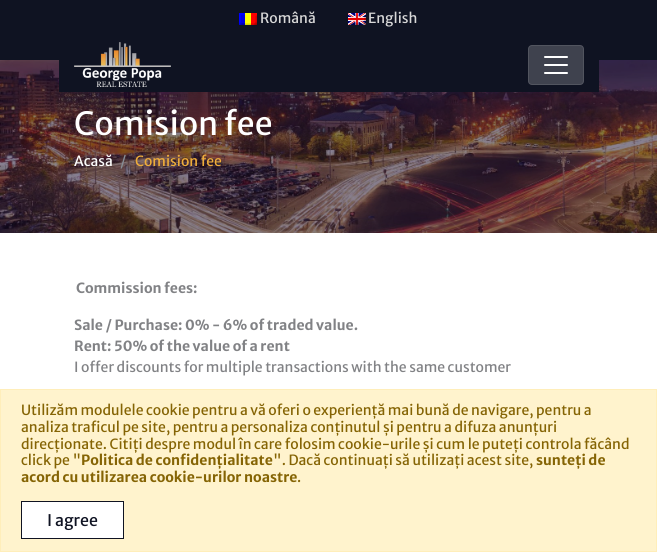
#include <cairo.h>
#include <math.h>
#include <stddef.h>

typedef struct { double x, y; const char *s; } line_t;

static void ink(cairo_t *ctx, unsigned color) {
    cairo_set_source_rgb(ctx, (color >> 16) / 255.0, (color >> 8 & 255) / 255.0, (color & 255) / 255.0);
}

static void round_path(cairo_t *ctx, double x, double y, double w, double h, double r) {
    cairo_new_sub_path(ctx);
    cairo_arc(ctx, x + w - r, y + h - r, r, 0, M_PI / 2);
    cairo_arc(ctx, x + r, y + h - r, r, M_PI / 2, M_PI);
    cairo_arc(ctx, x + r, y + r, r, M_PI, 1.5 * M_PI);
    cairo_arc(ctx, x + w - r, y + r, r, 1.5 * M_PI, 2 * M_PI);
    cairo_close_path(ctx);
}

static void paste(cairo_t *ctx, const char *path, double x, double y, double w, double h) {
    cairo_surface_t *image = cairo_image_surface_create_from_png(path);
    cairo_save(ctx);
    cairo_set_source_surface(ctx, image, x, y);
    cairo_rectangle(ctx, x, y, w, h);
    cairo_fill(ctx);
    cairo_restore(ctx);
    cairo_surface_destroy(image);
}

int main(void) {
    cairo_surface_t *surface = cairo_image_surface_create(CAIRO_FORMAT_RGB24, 657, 552);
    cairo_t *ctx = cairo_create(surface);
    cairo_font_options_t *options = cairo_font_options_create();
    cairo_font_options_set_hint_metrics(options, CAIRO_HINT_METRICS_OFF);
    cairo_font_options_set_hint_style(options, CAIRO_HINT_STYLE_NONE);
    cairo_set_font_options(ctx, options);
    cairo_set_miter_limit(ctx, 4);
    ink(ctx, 0xFFFFFF);
    cairo_paint(ctx);
    ink(ctx, 0x0F1322);
    cairo_rectangle(ctx, 0, 0, 657, 60);
    cairo_fill(ctx);
    paste(ctx, "media/1.png", 239, 13, 18, 12);
    cairo_select_font_face(ctx, "Merriweather Sans", CAIRO_FONT_SLANT_NORMAL, CAIRO_FONT_WEIGHT_NORMAL);
    cairo_set_font_size(ctx, 14);
    ink(ctx, 0xD8D8D8);
    cairo_move_to(ctx, 260, 23);
    cairo_show_text(ctx, "Română");
    paste(ctx, "media/2.png", 348, 13, 18, 12);
    cairo_move_to(ctx, 368, 23);
    cairo_show_text(ctx, "English");
    paste(ctx, "media/5.png", 0, 60, 657, 173);
    ink(ctx, 0x0F1322);
    cairo_rectangle(ctx, 59, 60, 540, 32);
    cairo_fill(ctx);
    paste(ctx, "media/3.png", 74, 42, 97, 45);
    ink(ctx, 0x3F424E);
    round_path(ctx, 528, 45, 56, 40, 4);
    cairo_fill(ctx);
    round_path(ctx, 528.5, 45.5, 55, 39, 3.5);
    cairo_set_source_rgba(ctx, 1, 1, 1, 0.1);
    cairo_set_line_width(ctx, 1);
    cairo_stroke(ctx);
    paste(ctx, "media/4.png", 544, 56, 24, 18);
    cairo_set_font_size(ctx, 32);
    ink(ctx, 0xFFFFFF);
    cairo_move_to(ctx, 74, 135);
    cairo_show_text(ctx, "Comision fee");
    cairo_set_font_size(ctx, 14);
    cairo_move_to(ctx, 74, 166);
    cairo_show_text(ctx, "Acasă");
    ink(ctx, 0x868E96);
    cairo_move_to(ctx, 120, 166);
    cairo_show_text(ctx, "/");
    ink(ctx, 0xEFAD3A);
    cairo_move_to(ctx, 135, 166);
    cairo_show_text(ctx, "Comision fee");
    cairo_select_font_face(ctx, "Merriweather Sans", CAIRO_FONT_SLANT_NORMAL, CAIRO_FONT_WEIGHT_BOLD);
    ink(ctx, 0x818285);
    {
        static const line_t items[] = {
            {76, 293, "Commission fees:"},
            {74, 330, "Sale / Purchase: 0% - 6% of traded value."},
            {74, 351, "Rent: 50% of the value of a rent"},
        };
        for (size_t i = 0; i < sizeof items / sizeof *items; i++) {
            cairo_move_to(ctx, items[i].x, items[i].y);
            cairo_show_text(ctx, items[i].s);
        }
    }
    cairo_select_font_face(ctx, "Merriweather Sans", CAIRO_FONT_SLANT_NORMAL, CAIRO_FONT_WEIGHT_NORMAL);
    cairo_move_to(ctx, 74, 372);
    cairo_show_text(ctx, "I offer discounts for multiple transactions with the same customer");
    ink(ctx, 0xFFF3CD);
    cairo_rectangle(ctx, 0.5, 389.5, 656, 162);
    cairo_fill_preserve(ctx);
    ink(ctx, 0xFFEEBA);
    cairo_stroke(ctx);
    ink(ctx, 0x856404);
    {
        static const line_t items[] = {
            {21, 415, "Utilizăm modulele cookie pentru a vă oferi o experiență mai bună de navigare, pentru a"},
            {21, 432, "analiza traficul pe site, pentru a personaliza conținutul și pentru a difuza anunțuri"},
            {21, 449, "direcționate. Citiți despre modul în care folosim cookie-urile și cum le puteți controla făcând"},
            {21, 465, "click pe \""},
        };
        for (size_t i = 0; i < sizeof items / sizeof *items; i++) {
            cairo_move_to(ctx, items[i].x, items[i].y);
            cairo_show_text(ctx, items[i].s);
        }
    }
    cairo_select_font_face(ctx, "Merriweather Sans", CAIRO_FONT_SLANT_NORMAL, CAIRO_FONT_WEIGHT_BOLD);
    cairo_move_to(ctx, 81, 465);
    cairo_show_text(ctx, "Politica de confidențialitate");
    cairo_select_font_face(ctx, "Merriweather Sans", CAIRO_FONT_SLANT_NORMAL, CAIRO_FONT_WEIGHT_NORMAL);
    cairo_move_to(ctx, 273, 465);
    cairo_show_text(ctx, "\". Dacă continuați să utilizați acest site,");
    cairo_select_font_face(ctx, "Merriweather Sans", CAIRO_FONT_SLANT_NORMAL, CAIRO_FONT_WEIGHT_BOLD);
    cairo_move_to(ctx, 536, 465);
    cairo_show_text(ctx, "sunteți de");
    cairo_move_to(ctx, 21, 482);
    cairo_show_text(ctx, "acord cu utilizarea cookie-urilor noastre");
    cairo_select_font_face(ctx, "Merriweather Sans", CAIRO_FONT_SLANT_NORMAL, CAIRO_FONT_WEIGHT_NORMAL);
    cairo_move_to(ctx, 297, 482);
    cairo_show_text(ctx, ".");
    ink(ctx, 0xFFFFFF);
    cairo_rectangle(ctx, 21.5, 501.5, 102, 37);
    cairo_fill_preserve(ctx);
    ink(ctx, 0x0F1322);
    cairo_stroke(ctx);
    cairo_set_font_size(ctx, 16);
    cairo_move_to(ctx, 47, 526);
    cairo_show_text(ctx, "I agree");
    cairo_surface_write_to_png(surface, "image.png");
    cairo_font_options_destroy(options);
    cairo_destroy(ctx);
    cairo_surface_destroy(surface);
    return 0;
}
